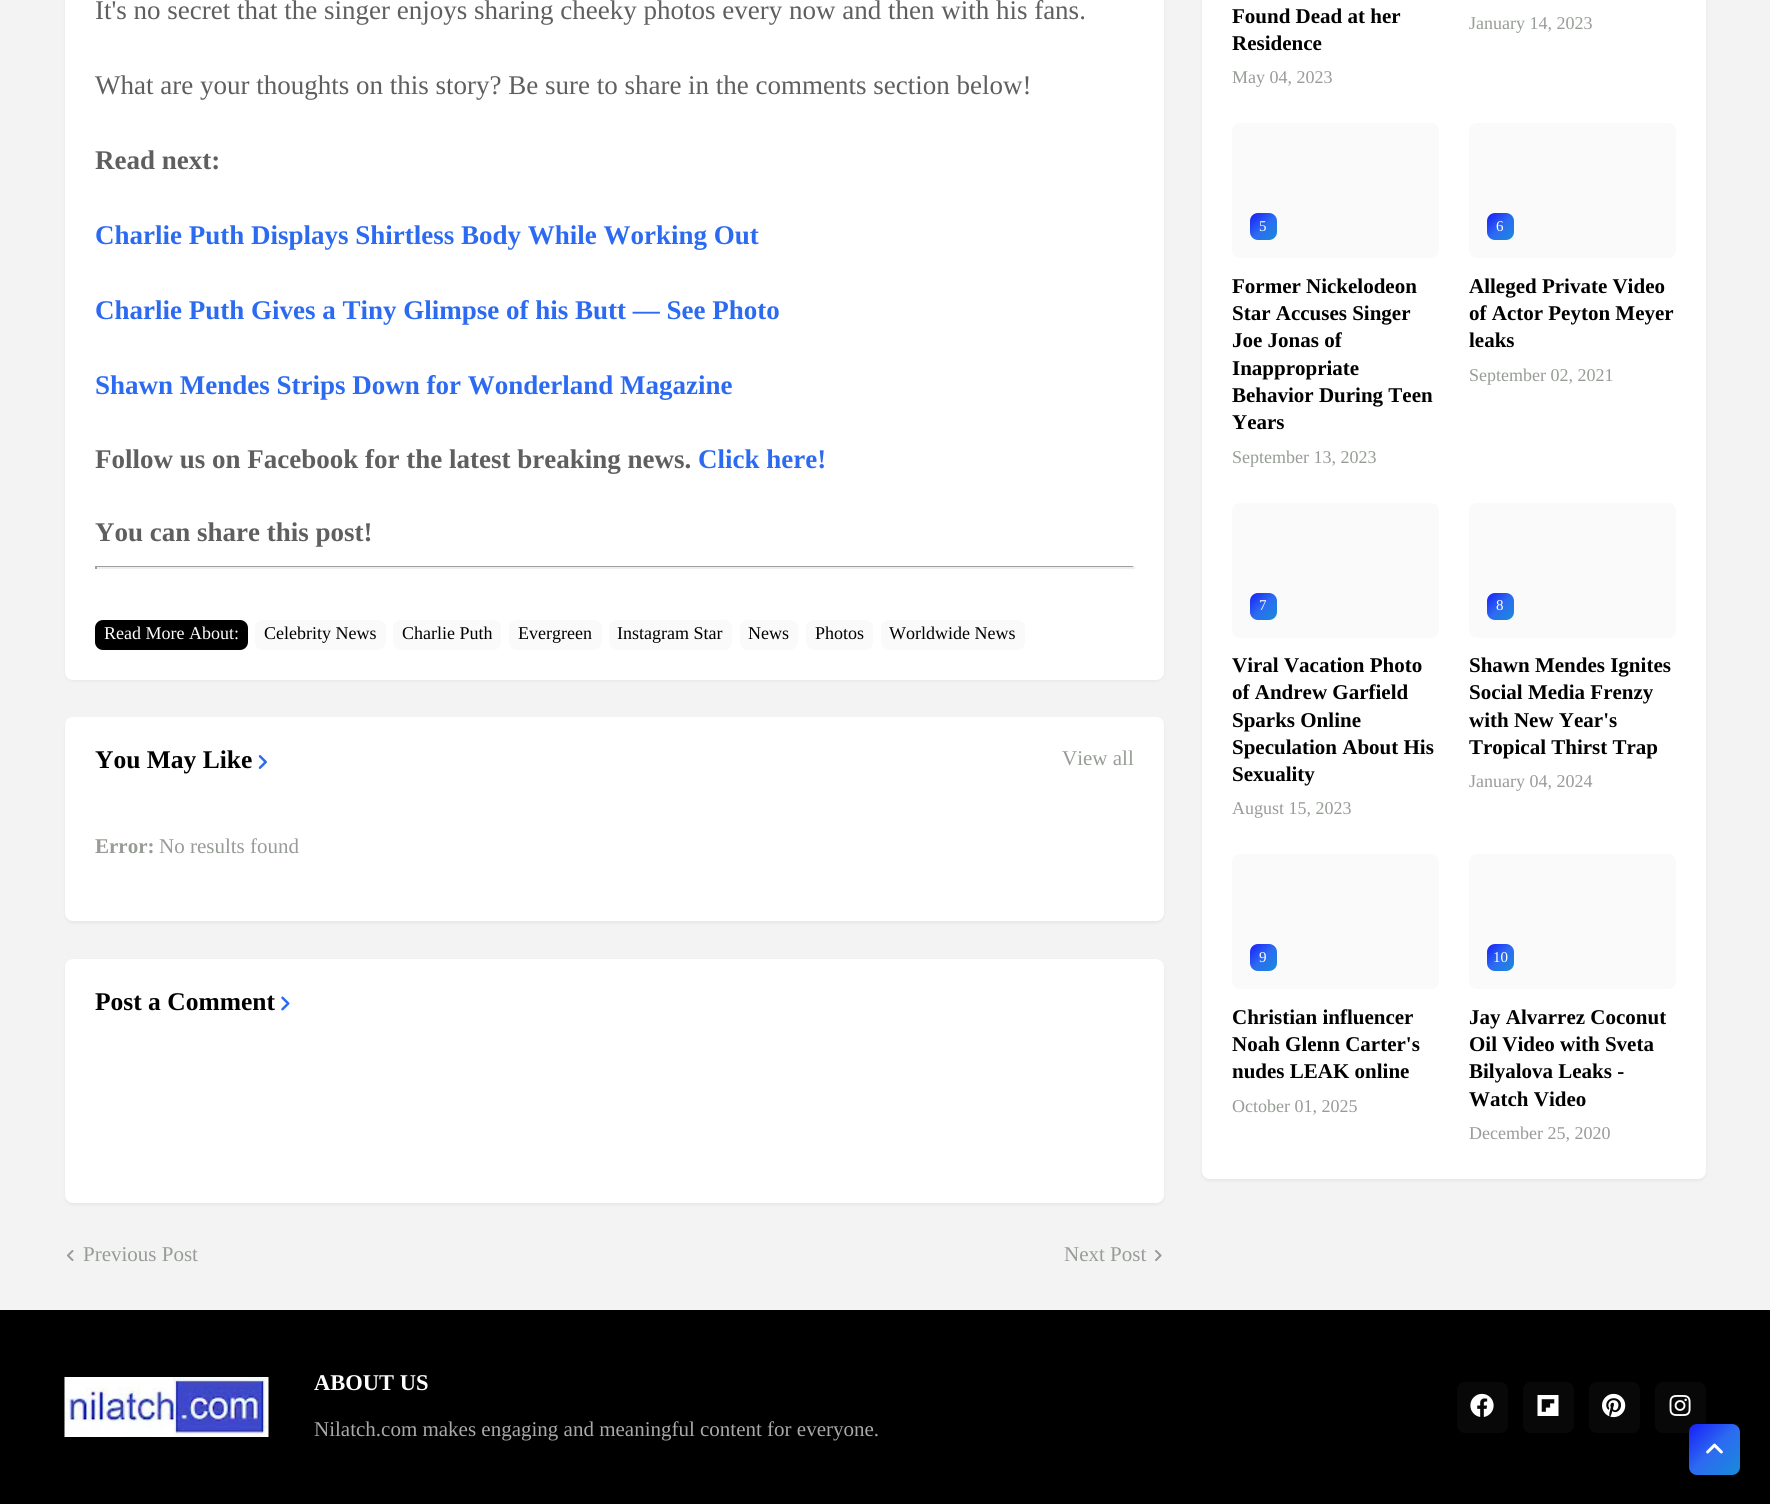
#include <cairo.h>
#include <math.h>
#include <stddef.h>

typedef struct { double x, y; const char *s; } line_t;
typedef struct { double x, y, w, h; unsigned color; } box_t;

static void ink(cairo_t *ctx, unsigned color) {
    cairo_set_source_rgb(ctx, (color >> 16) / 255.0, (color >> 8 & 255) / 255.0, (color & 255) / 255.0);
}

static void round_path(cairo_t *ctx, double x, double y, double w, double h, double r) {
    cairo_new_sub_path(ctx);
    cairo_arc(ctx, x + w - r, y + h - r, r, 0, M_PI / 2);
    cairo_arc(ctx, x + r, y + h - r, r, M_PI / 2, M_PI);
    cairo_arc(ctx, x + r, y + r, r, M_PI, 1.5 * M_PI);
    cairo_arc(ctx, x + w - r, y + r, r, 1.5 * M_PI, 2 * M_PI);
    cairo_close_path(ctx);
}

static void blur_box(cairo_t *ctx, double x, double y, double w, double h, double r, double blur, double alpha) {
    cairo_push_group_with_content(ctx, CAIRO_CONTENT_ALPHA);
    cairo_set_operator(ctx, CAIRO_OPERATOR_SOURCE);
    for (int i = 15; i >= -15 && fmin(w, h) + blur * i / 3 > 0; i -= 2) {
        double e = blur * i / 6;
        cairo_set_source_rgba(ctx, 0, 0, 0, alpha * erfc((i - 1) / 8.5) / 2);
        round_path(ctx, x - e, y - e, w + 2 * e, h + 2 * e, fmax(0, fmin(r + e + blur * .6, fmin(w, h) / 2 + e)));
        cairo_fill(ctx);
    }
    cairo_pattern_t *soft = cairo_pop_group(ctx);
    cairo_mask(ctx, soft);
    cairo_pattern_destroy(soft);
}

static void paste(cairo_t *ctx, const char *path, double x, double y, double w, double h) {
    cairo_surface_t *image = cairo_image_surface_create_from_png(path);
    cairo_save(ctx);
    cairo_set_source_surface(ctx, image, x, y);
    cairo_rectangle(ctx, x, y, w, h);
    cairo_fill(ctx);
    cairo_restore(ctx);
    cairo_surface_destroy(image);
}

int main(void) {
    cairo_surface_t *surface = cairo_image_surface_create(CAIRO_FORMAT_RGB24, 1770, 1504);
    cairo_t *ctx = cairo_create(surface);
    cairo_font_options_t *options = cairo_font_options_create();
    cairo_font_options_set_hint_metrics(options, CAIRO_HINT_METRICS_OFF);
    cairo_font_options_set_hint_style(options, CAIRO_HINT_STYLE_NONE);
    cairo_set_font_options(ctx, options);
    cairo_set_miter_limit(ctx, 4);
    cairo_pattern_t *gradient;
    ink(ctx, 0xF3F3F3);
    cairo_paint(ctx);
    ink(ctx, 0x000000);
    blur_box(ctx, 65, -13, 1099, 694, 8, 1.5, 0.05);
    ink(ctx, 0xFFFFFF);
    round_path(ctx, 65, -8, 1099, 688, 8);
    cairo_fill(ctx);
    cairo_select_font_face(ctx, "Liberation Serif", CAIRO_FONT_SLANT_NORMAL, CAIRO_FONT_WEIGHT_NORMAL);
    cairo_set_font_size(ctx, 27);
    ink(ctx, 0x5F5F5F);
    cairo_move_to(ctx, 95, 19);
    cairo_show_text(ctx, "It's no secret that the singer enjoys sharing cheeky photos every now and then with his fans.");
    cairo_move_to(ctx, 95, 94);
    cairo_show_text(ctx, "What are your thoughts on this story? Be sure to share in the comments section below!");
    cairo_select_font_face(ctx, "Liberation Serif", CAIRO_FONT_SLANT_NORMAL, CAIRO_FONT_WEIGHT_BOLD);
    cairo_move_to(ctx, 95, 169);
    cairo_show_text(ctx, "Read next:");
    ink(ctx, 0x2C6BF1);
    {
        static const line_t items[] = {
            {95, 244, "Charlie Puth Displays Shirtless Body While Working Out"},
            {95, 319, "Charlie Puth Gives a Tiny Glimpse of his Butt — See Photo"},
            {95, 394, "Shawn Mendes Strips Down for Wonderland Magazine"},
        };
        for (size_t i = 0; i < sizeof items / sizeof *items; i++) {
            cairo_move_to(ctx, items[i].x, items[i].y);
            cairo_show_text(ctx, items[i].s);
        }
    }
    ink(ctx, 0x5F5F5F);
    cairo_move_to(ctx, 95, 468);
    cairo_show_text(ctx, "Follow us on Facebook for the latest breaking news.");
    ink(ctx, 0x2C6BF1);
    cairo_move_to(ctx, 698, 468);
    cairo_show_text(ctx, "Click here!");
    ink(ctx, 0x5F5F5F);
    cairo_move_to(ctx, 95, 541);
    cairo_show_text(ctx, "You can share this post!");
    {
        static const box_t items[] = {
            {95, 566, 1039, 1, 0x9F9F9F},
            {1133, 566, 2, 3, 0xEEEEEE},
            {95, 567, 1039, 2, 0xEEEEEE},
            {95, 566, 2, 3, 0x9F9F9F},
        };
        for (size_t i = 0; i < sizeof items / sizeof *items; i++) {
            ink(ctx, items[i].color);
            cairo_rectangle(ctx, items[i].x, items[i].y, items[i].w, items[i].h);
            cairo_fill(ctx);
        }
    }
    ink(ctx, 0x000000);
    round_path(ctx, 95, 620, 153, 30, 8);
    cairo_fill(ctx);
    cairo_select_font_face(ctx, "Liberation Serif", CAIRO_FONT_SLANT_NORMAL, CAIRO_FONT_WEIGHT_NORMAL);
    cairo_set_font_size(ctx, 18);
    ink(ctx, 0xFFFFFF);
    cairo_move_to(ctx, 104, 639);
    cairo_show_text(ctx, "Read More About:");
    ink(ctx, 0xFAFAFA);
    round_path(ctx, 255, 620, 131, 30, 8);
    cairo_fill(ctx);
    ink(ctx, 0x000000);
    cairo_move_to(ctx, 264, 639);
    cairo_show_text(ctx, "Celebrity News");
    ink(ctx, 0xFAFAFA);
    round_path(ctx, 393, 620, 108, 30, 8);
    cairo_fill(ctx);
    ink(ctx, 0x000000);
    cairo_move_to(ctx, 402, 639);
    cairo_show_text(ctx, "Charlie Puth");
    ink(ctx, 0xFAFAFA);
    round_path(ctx, 509, 620, 93, 30, 8);
    cairo_fill(ctx);
    ink(ctx, 0x000000);
    cairo_move_to(ctx, 518, 639);
    cairo_show_text(ctx, "Evergreen");
    ink(ctx, 0xFAFAFA);
    round_path(ctx, 609, 620, 123, 30, 8);
    cairo_fill(ctx);
    ink(ctx, 0x000000);
    cairo_move_to(ctx, 617, 639);
    cairo_show_text(ctx, "Instagram Star");
    ink(ctx, 0xFAFAFA);
    round_path(ctx, 740, 620, 58, 30, 8);
    cairo_fill(ctx);
    ink(ctx, 0x000000);
    cairo_move_to(ctx, 748, 639);
    cairo_show_text(ctx, "News");
    ink(ctx, 0xFAFAFA);
    round_path(ctx, 806, 620, 67, 30, 8);
    cairo_fill(ctx);
    ink(ctx, 0x000000);
    cairo_move_to(ctx, 815, 639);
    cairo_show_text(ctx, "Photos");
    ink(ctx, 0xFAFAFA);
    round_path(ctx, 881, 620, 144, 30, 8);
    cairo_fill(ctx);
    ink(ctx, 0x000000);
    cairo_move_to(ctx, 889, 639);
    cairo_show_text(ctx, "Worldwide News");
    ink(ctx, 0x000000);
    blur_box(ctx, 65, 719, 1099, 204, 8, 1.5, 0.05);
    ink(ctx, 0xFFFFFF);
    round_path(ctx, 65, 717, 1099, 204, 8);
    cairo_fill(ctx);
    cairo_select_font_face(ctx, "Liberation Serif", CAIRO_FONT_SLANT_NORMAL, CAIRO_FONT_WEIGHT_BOLD);
    cairo_set_font_size(ctx, 25.5);
    ink(ctx, 0x000000);
    cairo_move_to(ctx, 95, 768);
    cairo_show_text(ctx, "You May Like");
    paste(ctx, "media/1.png", 258, 755, 9, 14);
    cairo_select_font_face(ctx, "Liberation Serif", CAIRO_FONT_SLANT_NORMAL, CAIRO_FONT_WEIGHT_NORMAL);
    cairo_set_font_size(ctx, 21);
    ink(ctx, 0x979C96);
    cairo_move_to(ctx, 1062, 765);
    cairo_show_text(ctx, "View all");
    cairo_select_font_face(ctx, "Liberation Serif", CAIRO_FONT_SLANT_NORMAL, CAIRO_FONT_WEIGHT_BOLD);
    cairo_move_to(ctx, 95, 853);
    cairo_show_text(ctx, "Error:");
    cairo_select_font_face(ctx, "Liberation Serif", CAIRO_FONT_SLANT_NORMAL, CAIRO_FONT_WEIGHT_NORMAL);
    cairo_move_to(ctx, 159, 853);
    cairo_show_text(ctx, "No results found");
    ink(ctx, 0x000000);
    blur_box(ctx, 65, 960, 1099, 245, 8, 1.5, 0.05);
    ink(ctx, 0xFFFFFF);
    round_path(ctx, 65, 959, 1099, 244, 8);
    cairo_fill(ctx);
    cairo_select_font_face(ctx, "Liberation Serif", CAIRO_FONT_SLANT_NORMAL, CAIRO_FONT_WEIGHT_BOLD);
    cairo_set_font_size(ctx, 25.5);
    ink(ctx, 0x000000);
    cairo_move_to(ctx, 95, 1010);
    cairo_show_text(ctx, "Post a Comment");
    paste(ctx, "media/2.png", 281, 996, 9, 15);
    paste(ctx, "media/3.png", 66, 1250, 8, 11);
    cairo_select_font_face(ctx, "Liberation Serif", CAIRO_FONT_SLANT_NORMAL, CAIRO_FONT_WEIGHT_NORMAL);
    cairo_set_font_size(ctx, 21);
    ink(ctx, 0x979C96);
    cairo_move_to(ctx, 83, 1261);
    cairo_show_text(ctx, "Previous Post");
    cairo_move_to(ctx, 1064, 1261);
    cairo_show_text(ctx, "Next Post");
    paste(ctx, "media/4.png", 1155, 1250, 7, 11);
    ink(ctx, 0x000000);
    blur_box(ctx, 1202, -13, 504, 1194, 8, 1.5, 0.05);
    ink(ctx, 0xFFFFFF);
    round_path(ctx, 1202, -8, 504, 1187, 8);
    cairo_fill(ctx);
    cairo_select_font_face(ctx, "Liberation Serif", CAIRO_FONT_SLANT_NORMAL, CAIRO_FONT_WEIGHT_BOLD);
    ink(ctx, 0x000000);
    cairo_move_to(ctx, 1232, 23);
    cairo_show_text(ctx, "Found Dead at her");
    cairo_move_to(ctx, 1232, 50);
    cairo_show_text(ctx, "Residence");
    cairo_select_font_face(ctx, "Liberation Serif", CAIRO_FONT_SLANT_NORMAL, CAIRO_FONT_WEIGHT_NORMAL);
    cairo_set_font_size(ctx, 18);
    ink(ctx, 0x979C96);
    cairo_move_to(ctx, 1232, 83);
    cairo_show_text(ctx, "May 04, 2023");
    cairo_move_to(ctx, 1469, 29);
    cairo_show_text(ctx, "January 14, 2023");
    ink(ctx, 0xFAFAFA);
    round_path(ctx, 1232, 123, 207, 135, 8);
    cairo_fill(ctx);
    gradient = cairo_pattern_create_linear(1250, 214, 1277, 241);
    cairo_pattern_add_color_stop_rgba(gradient, 0, 0.094, 0.118, 0.973, 1);
    cairo_pattern_add_color_stop_rgba(gradient, 0.5, 0.173, 0.42, 0.945, 1);
    cairo_pattern_add_color_stop_rgba(gradient, 1, 0.094, 0.549, 0.847, 1);
    cairo_set_source(ctx, gradient);
    cairo_pattern_destroy(gradient);
    round_path(ctx, 1250, 213, 27, 27, 8);
    cairo_fill(ctx);
    cairo_set_font_size(ctx, 15);
    ink(ctx, 0xFFFFFF);
    cairo_move_to(ctx, 1259, 231);
    cairo_show_text(ctx, "5");
    cairo_select_font_face(ctx, "Liberation Serif", CAIRO_FONT_SLANT_NORMAL, CAIRO_FONT_WEIGHT_BOLD);
    cairo_set_font_size(ctx, 21);
    ink(ctx, 0x000000);
    {
        static const line_t items[] = {
            {1232, 293, "Former Nickelodeon"},
            {1232, 320, "Star Accuses Singer"},
            {1232, 347, "Joe Jonas of"},
            {1232, 375, "Inappropriate"},
            {1232, 402, "Behavior During Teen"},
            {1232, 429, "Years"},
        };
        for (size_t i = 0; i < sizeof items / sizeof *items; i++) {
            cairo_move_to(ctx, items[i].x, items[i].y);
            cairo_show_text(ctx, items[i].s);
        }
    }
    cairo_select_font_face(ctx, "Liberation Serif", CAIRO_FONT_SLANT_NORMAL, CAIRO_FONT_WEIGHT_NORMAL);
    cairo_set_font_size(ctx, 18);
    ink(ctx, 0x979C96);
    cairo_move_to(ctx, 1232, 463);
    cairo_show_text(ctx, "September 13, 2023");
    ink(ctx, 0xFAFAFA);
    round_path(ctx, 1469, 123, 207, 135, 8);
    cairo_fill(ctx);
    gradient = cairo_pattern_create_linear(1487, 214, 1514, 241);
    cairo_pattern_add_color_stop_rgba(gradient, 0, 0.094, 0.118, 0.973, 1);
    cairo_pattern_add_color_stop_rgba(gradient, 0.5, 0.173, 0.42, 0.945, 1);
    cairo_pattern_add_color_stop_rgba(gradient, 1, 0.094, 0.549, 0.847, 1);
    cairo_set_source(ctx, gradient);
    cairo_pattern_destroy(gradient);
    round_path(ctx, 1487, 213, 27, 27, 8);
    cairo_fill(ctx);
    cairo_set_font_size(ctx, 15);
    ink(ctx, 0xFFFFFF);
    cairo_move_to(ctx, 1496, 231);
    cairo_show_text(ctx, "6");
    cairo_select_font_face(ctx, "Liberation Serif", CAIRO_FONT_SLANT_NORMAL, CAIRO_FONT_WEIGHT_BOLD);
    cairo_set_font_size(ctx, 21);
    ink(ctx, 0x000000);
    {
        static const line_t items[] = {
            {1469, 293, "Alleged Private Video"},
            {1469, 320, "of Actor Peyton Meyer"},
            {1469, 347, "leaks"},
        };
        for (size_t i = 0; i < sizeof items / sizeof *items; i++) {
            cairo_move_to(ctx, items[i].x, items[i].y);
            cairo_show_text(ctx, items[i].s);
        }
    }
    cairo_select_font_face(ctx, "Liberation Serif", CAIRO_FONT_SLANT_NORMAL, CAIRO_FONT_WEIGHT_NORMAL);
    cairo_set_font_size(ctx, 18);
    ink(ctx, 0x979C96);
    cairo_move_to(ctx, 1469, 381);
    cairo_show_text(ctx, "September 02, 2021");
    ink(ctx, 0xFAFAFA);
    round_path(ctx, 1232, 503, 207, 135, 8);
    cairo_fill(ctx);
    gradient = cairo_pattern_create_linear(1250, 593, 1277, 620);
    cairo_pattern_add_color_stop_rgba(gradient, 0, 0.094, 0.118, 0.973, 1);
    cairo_pattern_add_color_stop_rgba(gradient, 0.5, 0.173, 0.42, 0.945, 1);
    cairo_pattern_add_color_stop_rgba(gradient, 1, 0.094, 0.549, 0.847, 1);
    cairo_set_source(ctx, gradient);
    cairo_pattern_destroy(gradient);
    round_path(ctx, 1250, 593, 27, 27, 8);
    cairo_fill(ctx);
    cairo_set_font_size(ctx, 15);
    ink(ctx, 0xFFFFFF);
    cairo_move_to(ctx, 1259, 610);
    cairo_show_text(ctx, "7");
    cairo_select_font_face(ctx, "Liberation Serif", CAIRO_FONT_SLANT_NORMAL, CAIRO_FONT_WEIGHT_BOLD);
    cairo_set_font_size(ctx, 21);
    ink(ctx, 0x000000);
    {
        static const line_t items[] = {
            {1232, 672, "Viral Vacation Photo"},
            {1232, 699, "of Andrew Garfield"},
            {1232, 727, "Sparks Online"},
            {1232, 754, "Speculation About His"},
            {1232, 781, "Sexuality"},
        };
        for (size_t i = 0; i < sizeof items / sizeof *items; i++) {
            cairo_move_to(ctx, items[i].x, items[i].y);
            cairo_show_text(ctx, items[i].s);
        }
    }
    cairo_select_font_face(ctx, "Liberation Serif", CAIRO_FONT_SLANT_NORMAL, CAIRO_FONT_WEIGHT_NORMAL);
    cairo_set_font_size(ctx, 18);
    ink(ctx, 0x979C96);
    cairo_move_to(ctx, 1232, 814);
    cairo_show_text(ctx, "August 15, 2023");
    ink(ctx, 0xFAFAFA);
    round_path(ctx, 1469, 503, 207, 135, 8);
    cairo_fill(ctx);
    gradient = cairo_pattern_create_linear(1487, 593, 1514, 620);
    cairo_pattern_add_color_stop_rgba(gradient, 0, 0.094, 0.118, 0.973, 1);
    cairo_pattern_add_color_stop_rgba(gradient, 0.5, 0.173, 0.42, 0.945, 1);
    cairo_pattern_add_color_stop_rgba(gradient, 1, 0.094, 0.549, 0.847, 1);
    cairo_set_source(ctx, gradient);
    cairo_pattern_destroy(gradient);
    round_path(ctx, 1487, 593, 27, 27, 8);
    cairo_fill(ctx);
    cairo_set_font_size(ctx, 15);
    ink(ctx, 0xFFFFFF);
    cairo_move_to(ctx, 1496, 610);
    cairo_show_text(ctx, "8");
    cairo_select_font_face(ctx, "Liberation Serif", CAIRO_FONT_SLANT_NORMAL, CAIRO_FONT_WEIGHT_BOLD);
    cairo_set_font_size(ctx, 21);
    ink(ctx, 0x000000);
    {
        static const line_t items[] = {
            {1469, 672, "Shawn Mendes Ignites"},
            {1469, 699, "Social Media Frenzy"},
            {1469, 727, "with New Year's"},
            {1469, 754, "Tropical Thirst Trap"},
        };
        for (size_t i = 0; i < sizeof items / sizeof *items; i++) {
            cairo_move_to(ctx, items[i].x, items[i].y);
            cairo_show_text(ctx, items[i].s);
        }
    }
    cairo_select_font_face(ctx, "Liberation Serif", CAIRO_FONT_SLANT_NORMAL, CAIRO_FONT_WEIGHT_NORMAL);
    cairo_set_font_size(ctx, 18);
    ink(ctx, 0x979C96);
    cairo_move_to(ctx, 1469, 787);
    cairo_show_text(ctx, "January 04, 2024");
    ink(ctx, 0xFAFAFA);
    round_path(ctx, 1232, 854, 207, 135, 8);
    cairo_fill(ctx);
    gradient = cairo_pattern_create_linear(1250, 944, 1277, 971);
    cairo_pattern_add_color_stop_rgba(gradient, 0, 0.094, 0.118, 0.973, 1);
    cairo_pattern_add_color_stop_rgba(gradient, 0.5, 0.173, 0.42, 0.945, 1);
    cairo_pattern_add_color_stop_rgba(gradient, 1, 0.094, 0.549, 0.847, 1);
    cairo_set_source(ctx, gradient);
    cairo_pattern_destroy(gradient);
    round_path(ctx, 1250, 944, 27, 27, 8);
    cairo_fill(ctx);
    cairo_set_font_size(ctx, 15);
    ink(ctx, 0xFFFFFF);
    cairo_move_to(ctx, 1259, 962);
    cairo_show_text(ctx, "9");
    cairo_select_font_face(ctx, "Liberation Serif", CAIRO_FONT_SLANT_NORMAL, CAIRO_FONT_WEIGHT_BOLD);
    cairo_set_font_size(ctx, 21);
    ink(ctx, 0x000000);
    {
        static const line_t items[] = {
            {1232, 1024, "Christian influencer"},
            {1232, 1051, "Noah Glenn Carter's"},
            {1232, 1078, "nudes LEAK online"},
        };
        for (size_t i = 0; i < sizeof items / sizeof *items; i++) {
            cairo_move_to(ctx, items[i].x, items[i].y);
            cairo_show_text(ctx, items[i].s);
        }
    }
    cairo_select_font_face(ctx, "Liberation Serif", CAIRO_FONT_SLANT_NORMAL, CAIRO_FONT_WEIGHT_NORMAL);
    cairo_set_font_size(ctx, 18);
    ink(ctx, 0x979C96);
    cairo_move_to(ctx, 1232, 1112);
    cairo_show_text(ctx, "October 01, 2025");
    ink(ctx, 0xFAFAFA);
    round_path(ctx, 1469, 854, 207, 135, 8);
    cairo_fill(ctx);
    gradient = cairo_pattern_create_linear(1487, 944, 1514, 971);
    cairo_pattern_add_color_stop_rgba(gradient, 0, 0.094, 0.118, 0.973, 1);
    cairo_pattern_add_color_stop_rgba(gradient, 0.5, 0.173, 0.42, 0.945, 1);
    cairo_pattern_add_color_stop_rgba(gradient, 1, 0.094, 0.549, 0.847, 1);
    cairo_set_source(ctx, gradient);
    cairo_pattern_destroy(gradient);
    round_path(ctx, 1487, 944, 27, 27, 8);
    cairo_fill(ctx);
    cairo_set_font_size(ctx, 15);
    ink(ctx, 0xFFFFFF);
    cairo_move_to(ctx, 1493, 962);
    cairo_show_text(ctx, "10");
    cairo_select_font_face(ctx, "Liberation Serif", CAIRO_FONT_SLANT_NORMAL, CAIRO_FONT_WEIGHT_BOLD);
    cairo_set_font_size(ctx, 21);
    ink(ctx, 0x000000);
    {
        static const line_t items[] = {
            {1469, 1024, "Jay Alvarrez Coconut"},
            {1469, 1051, "Oil Video with Sveta"},
            {1469, 1078, "Bilyalova Leaks -"},
            {1469, 1106, "Watch Video"},
        };
        for (size_t i = 0; i < sizeof items / sizeof *items; i++) {
            cairo_move_to(ctx, items[i].x, items[i].y);
            cairo_show_text(ctx, items[i].s);
        }
    }
    cairo_select_font_face(ctx, "Liberation Serif", CAIRO_FONT_SLANT_NORMAL, CAIRO_FONT_WEIGHT_NORMAL);
    cairo_set_font_size(ctx, 18);
    ink(ctx, 0x979C96);
    cairo_move_to(ctx, 1469, 1139);
    cairo_show_text(ctx, "December 25, 2020");
    ink(ctx, 0x000000);
    cairo_rectangle(ctx, 0, 1310, 1770, 194);
    cairo_fill(ctx);
    paste(ctx, "media/5.png", 64, 1377, 205, 60);
    cairo_select_font_face(ctx, "Liberation Serif", CAIRO_FONT_SLANT_NORMAL, CAIRO_FONT_WEIGHT_BOLD);
    cairo_set_font_size(ctx, 22.5);
    ink(ctx, 0xFFFFFF);
    cairo_move_to(ctx, 314, 1390);
    cairo_show_text(ctx, "ABOUT US");
    cairo_select_font_face(ctx, "Liberation Serif", CAIRO_FONT_SLANT_NORMAL, CAIRO_FONT_WEIGHT_NORMAL);
    cairo_set_font_size(ctx, 21);
    ink(ctx, 0xA9A9A9);
    cairo_move_to(ctx, 314, 1436);
    cairo_show_text(ctx, "Nilatch.com makes engaging and meaningful content for everyone.");
    ink(ctx, 0x080808);
    round_path(ctx, 1457, 1382, 51, 51, 8);
    cairo_fill(ctx);
    paste(ctx, "media/6.png", 1470, 1393, 24, 24);
    round_path(ctx, 1523, 1382, 51, 51, 8);
    cairo_fill(ctx);
    paste(ctx, "media/7.png", 1537, 1395, 22, 21);
    round_path(ctx, 1589, 1382, 51, 51, 8);
    cairo_fill(ctx);
    paste(ctx, "media/8.png", 1602, 1393, 24, 25);
    round_path(ctx, 1655, 1382, 51, 51, 8);
    cairo_fill(ctx);
    paste(ctx, "media/9.png", 1669, 1395, 22, 21);
    gradient = cairo_pattern_create_linear(1689, 1424, 1740, 1475);
    cairo_pattern_add_color_stop_rgba(gradient, 0, 0.094, 0.118, 0.973, 1);
    cairo_pattern_add_color_stop_rgba(gradient, 0.5, 0.173, 0.42, 0.945, 1);
    cairo_pattern_add_color_stop_rgba(gradient, 1, 0.094, 0.549, 0.847, 1);
    cairo_set_source(ctx, gradient);
    cairo_pattern_destroy(gradient);
    round_path(ctx, 1689, 1424, 51, 51, 8);
    cairo_fill(ctx);
    paste(ctx, "media/10.png", 1706, 1443, 17, 11);
    cairo_surface_write_to_png(surface, "image.png");
    cairo_font_options_destroy(options);
    cairo_destroy(ctx);
    cairo_surface_destroy(surface);
    return 0;
}
